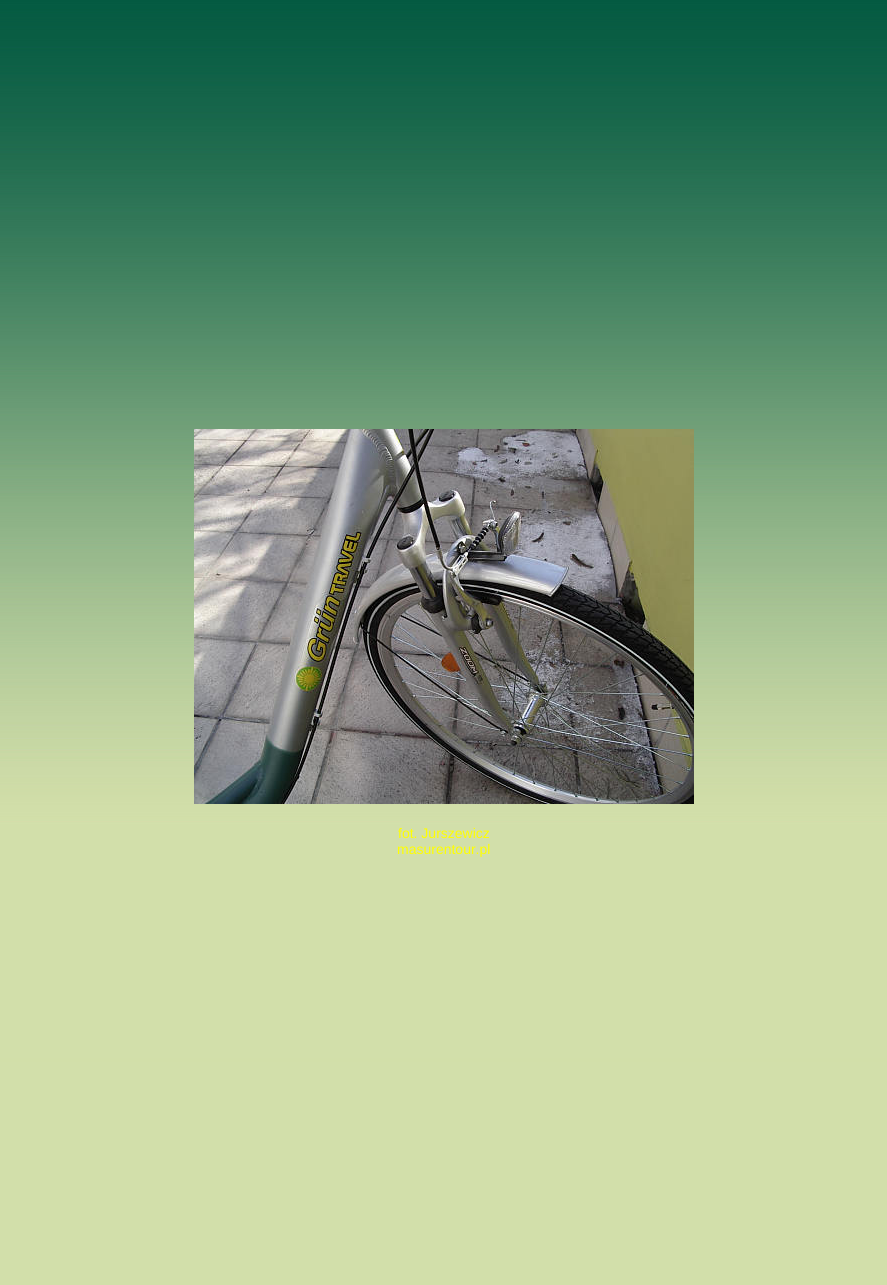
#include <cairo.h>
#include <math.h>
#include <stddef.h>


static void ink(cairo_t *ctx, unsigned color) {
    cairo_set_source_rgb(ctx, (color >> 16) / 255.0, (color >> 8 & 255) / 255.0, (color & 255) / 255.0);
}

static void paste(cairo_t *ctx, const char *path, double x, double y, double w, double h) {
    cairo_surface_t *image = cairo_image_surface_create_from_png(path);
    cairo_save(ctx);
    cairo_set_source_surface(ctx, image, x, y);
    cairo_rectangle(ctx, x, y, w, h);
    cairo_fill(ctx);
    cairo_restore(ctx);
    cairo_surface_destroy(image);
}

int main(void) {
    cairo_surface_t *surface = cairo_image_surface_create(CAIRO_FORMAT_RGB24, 887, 1285);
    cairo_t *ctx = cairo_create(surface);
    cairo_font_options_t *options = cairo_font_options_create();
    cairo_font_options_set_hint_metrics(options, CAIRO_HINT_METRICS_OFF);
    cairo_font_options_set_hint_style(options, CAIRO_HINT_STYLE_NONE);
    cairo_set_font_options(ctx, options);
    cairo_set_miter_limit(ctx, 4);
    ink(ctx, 0xFFFFFF);
    cairo_paint(ctx);
    paste(ctx, "media/1.png", 0, 0, 887, 1285);
    paste(ctx, "media/2.png", 194, 429, 500, 375);
    cairo_select_font_face(ctx, "Liberation Sans", CAIRO_FONT_SLANT_NORMAL, CAIRO_FONT_WEIGHT_NORMAL);
    cairo_set_font_size(ctx, 14);
    ink(ctx, 0xFFFF00);
    cairo_move_to(ctx, 398, 838);
    cairo_show_text(ctx, "fot. Jurszewicz");
    cairo_move_to(ctx, 397, 854);
    cairo_show_text(ctx, "masurentour.pl");
    cairo_surface_write_to_png(surface, "image.png");
    cairo_font_options_destroy(options);
    cairo_destroy(ctx);
    cairo_surface_destroy(surface);
    return 0;
}
